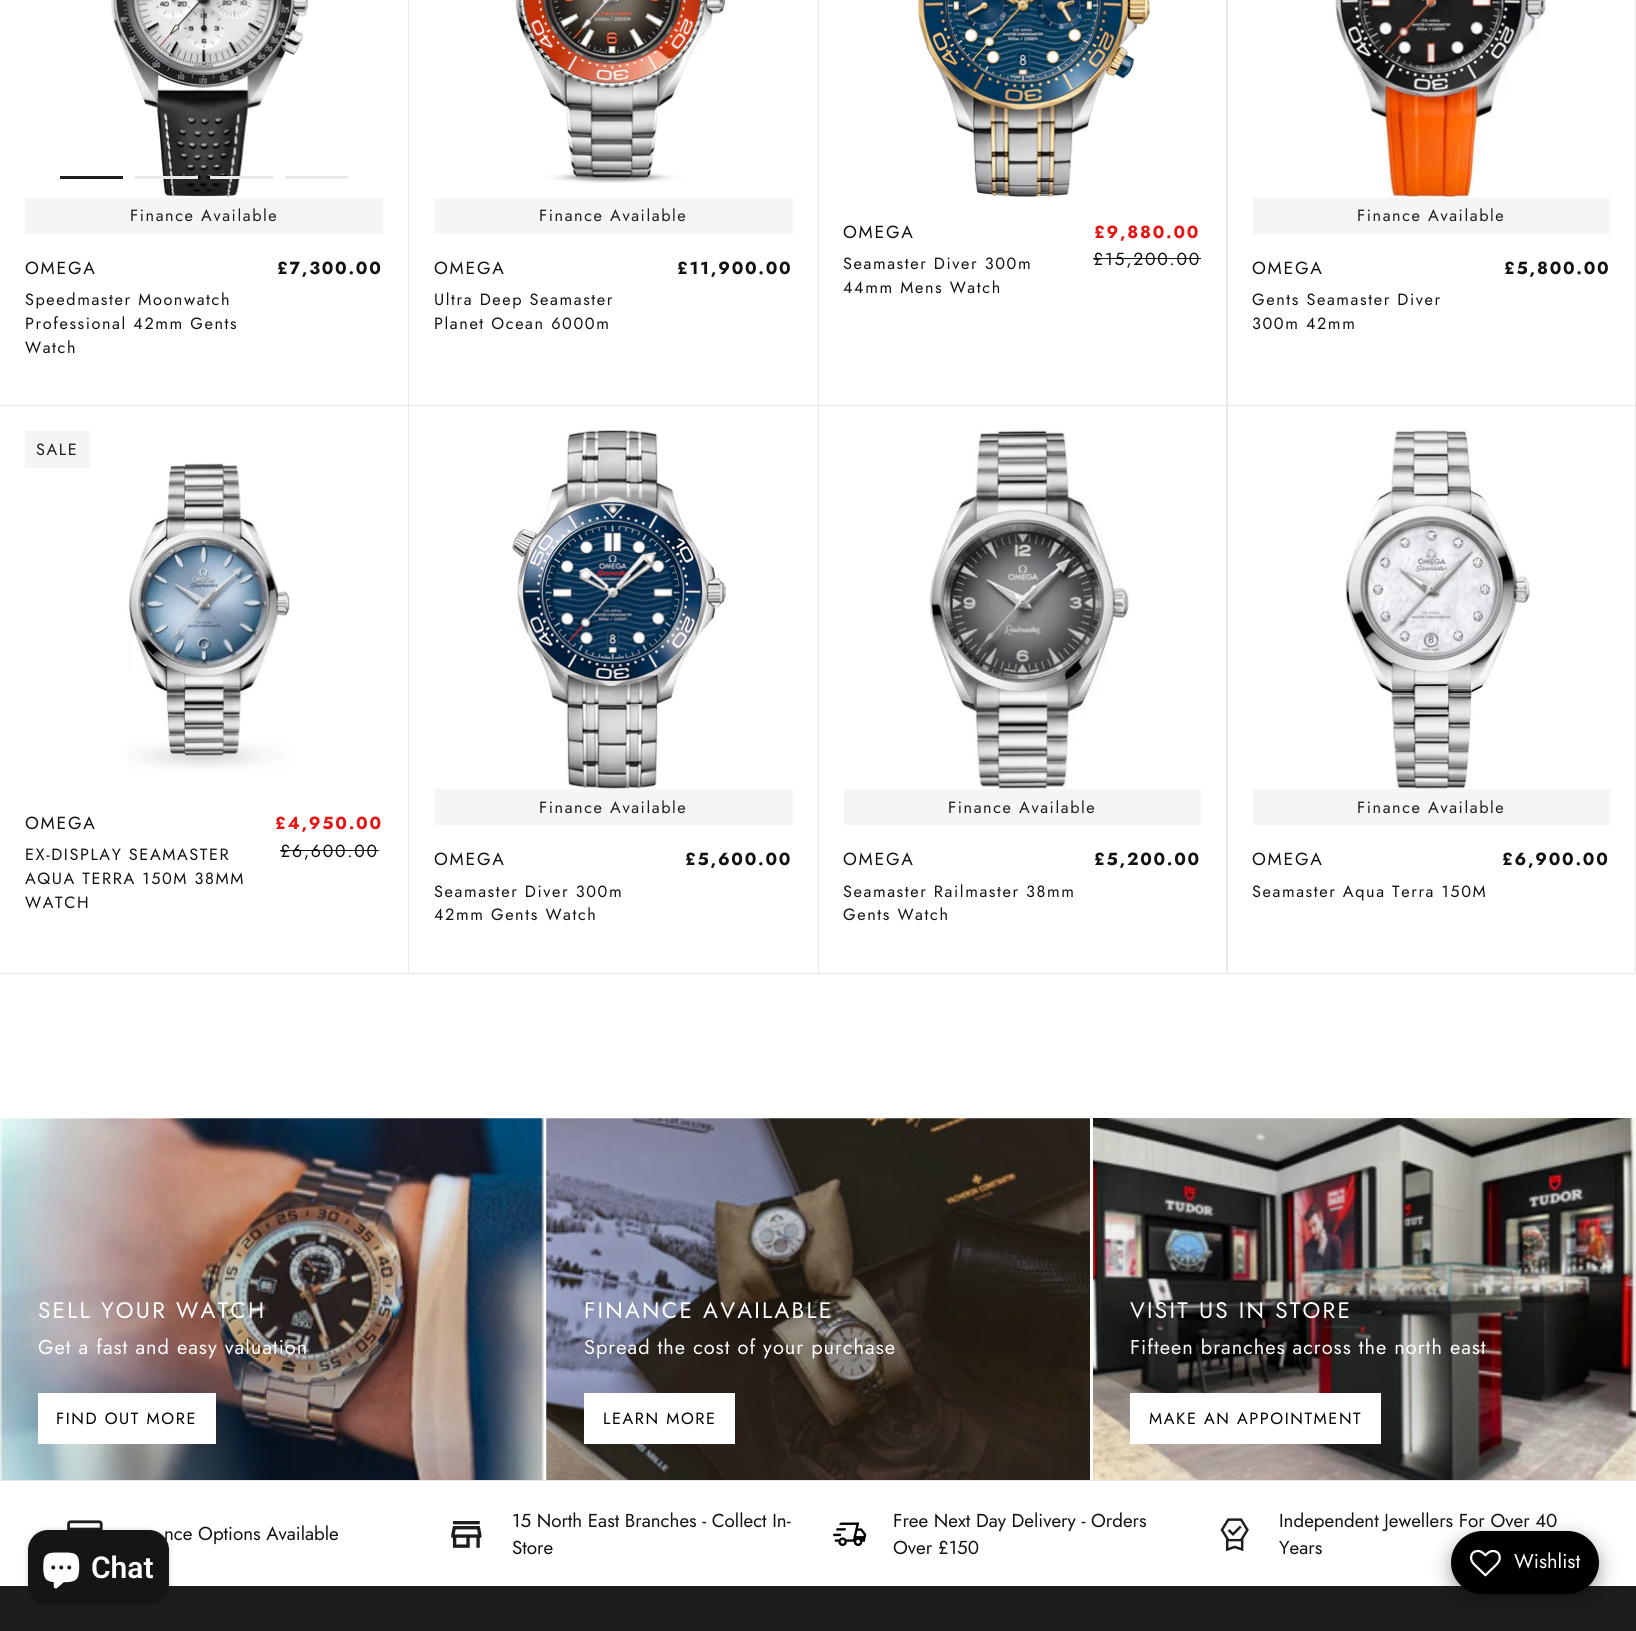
#include <cairo.h>
#include <math.h>
#include <stddef.h>

typedef struct { double x, y; const char *s; } line_t;
typedef struct { double x, y, w, h; unsigned color; } box_t;

static void ink(cairo_t *ctx, unsigned color) {
    cairo_set_source_rgb(ctx, (color >> 16) / 255.0, (color >> 8 & 255) / 255.0, (color & 255) / 255.0);
}

static void write_spaced(cairo_t *ctx, double x, double y, const char *s, double letter, double word) {
    cairo_move_to(ctx, x, y);
    while (*s) {
        char ch[5] = {0};
        int n = 0;
        do ch[n++] = *s++; while ((*s & 0xC0) == 0x80);
        cairo_show_text(ctx, ch);
        cairo_rel_move_to(ctx, letter + word * (*ch == ' '), 0);
    }
}

static void round_path(cairo_t *ctx, double x, double y, double w, double h, double r) {
    cairo_new_sub_path(ctx);
    cairo_arc(ctx, x + w - r, y + h - r, r, 0, M_PI / 2);
    cairo_arc(ctx, x + r, y + h - r, r, M_PI / 2, M_PI);
    cairo_arc(ctx, x + r, y + r, r, M_PI, 1.5 * M_PI);
    cairo_arc(ctx, x + w - r, y + r, r, 1.5 * M_PI, 2 * M_PI);
    cairo_close_path(ctx);
}

static void blur_box(cairo_t *ctx, double x, double y, double w, double h, double r, double blur, double alpha) {
    cairo_push_group_with_content(ctx, CAIRO_CONTENT_ALPHA);
    cairo_set_operator(ctx, CAIRO_OPERATOR_SOURCE);
    for (int i = 15; i >= -15 && fmin(w, h) + blur * i / 3 > 0; i -= 2) {
        double e = blur * i / 6;
        cairo_set_source_rgba(ctx, 0, 0, 0, alpha * erfc((i - 1) / 8.5) / 2);
        round_path(ctx, x - e, y - e, w + 2 * e, h + 2 * e, fmax(0, fmin(r + e + blur * .6, fmin(w, h) / 2 + e)));
        cairo_fill(ctx);
    }
    cairo_pattern_t *soft = cairo_pop_group(ctx);
    cairo_mask(ctx, soft);
    cairo_pattern_destroy(soft);
}

static void paste(cairo_t *ctx, const char *path, double x, double y, double w, double h) {
    cairo_surface_t *image = cairo_image_surface_create_from_png(path);
    cairo_save(ctx);
    cairo_set_source_surface(ctx, image, x, y);
    cairo_rectangle(ctx, x, y, w, h);
    cairo_fill(ctx);
    cairo_restore(ctx);
    cairo_surface_destroy(image);
}

int main(void) {
    cairo_surface_t *surface = cairo_image_surface_create(CAIRO_FORMAT_RGB24, 1636, 1631);
    cairo_t *ctx = cairo_create(surface);
    cairo_font_options_t *options = cairo_font_options_create();
    cairo_font_options_set_hint_metrics(options, CAIRO_HINT_METRICS_OFF);
    cairo_font_options_set_hint_style(options, CAIRO_HINT_STYLE_NONE);
    cairo_set_font_options(ctx, options);
    cairo_set_miter_limit(ctx, 4);
    cairo_pattern_t *gradient;
    ink(ctx, 0xFFFFFF);
    cairo_paint(ctx);
    paste(ctx, "media/1.png", 110, 0, 199, 197);
    {
        static const box_t items[] = {
            {60, 176, 63, 3, 0x1D1D1B},
            {135, 176, 63, 3, 0xEAEAEA},
            {210, 176, 63, 3, 0xEAEAEA},
            {285, 176, 63, 3, 0xEAEAEA},
            {25, 198, 358, 36, 0xF5F5F5},
        };
        for (size_t i = 0; i < sizeof items / sizeof *items; i++) {
            ink(ctx, items[i].color);
            cairo_rectangle(ctx, items[i].x, items[i].y, items[i].w, items[i].h);
            cairo_fill(ctx);
        }
    }
    cairo_select_font_face(ctx, "Jost", CAIRO_FONT_SLANT_NORMAL, CAIRO_FONT_WEIGHT_NORMAL);
    cairo_set_font_size(ctx, 16.25);
    ink(ctx, 0x1D1D1B);
    write_spaced(ctx, 130, 221, "Finance Available", 1.6, 0);
    cairo_set_font_size(ctx, 17.5);
    ink(ctx, 0x121212);
    write_spaced(ctx, 25, 274, "OMEGA", 1.75, 0);
    cairo_set_font_size(ctx, 16.25);
    {
        static const line_t items[] = {
            {25, 305, "Speedmaster Moonwatch"},
            {25, 329, "Professional 42mm Gents"},
            {25, 353, "Watch"},
        };
        for (size_t i = 0; i < sizeof items / sizeof *items; i++) {
            write_spaced(ctx, items[i].x, items[i].y, items[i].s, 1.6, 0);
        }
    }
    cairo_select_font_face(ctx, "Jost", CAIRO_FONT_SLANT_NORMAL, CAIRO_FONT_WEIGHT_BOLD);
    cairo_set_font_size(ctx, 17.5);
    write_spaced(ctx, 277, 274, "£7,300.00", 1.75, 0);
    cairo_rectangle(ctx, 408.5, -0.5, 410, 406);
    ink(ctx, 0xEAEAEA);
    cairo_set_line_width(ctx, 1);
    cairo_stroke(ctx);
    paste(ctx, "media/2.png", 513, 0, 213, 183);
    ink(ctx, 0xF5F5F5);
    cairo_rectangle(ctx, 434, 198, 359, 36);
    cairo_fill(ctx);
    cairo_select_font_face(ctx, "Jost", CAIRO_FONT_SLANT_NORMAL, CAIRO_FONT_WEIGHT_NORMAL);
    cairo_set_font_size(ctx, 16.25);
    ink(ctx, 0x1D1D1B);
    write_spaced(ctx, 539, 221, "Finance Available", 1.6, 0);
    cairo_set_font_size(ctx, 17.5);
    ink(ctx, 0x121212);
    write_spaced(ctx, 434, 274, "OMEGA", 1.75, 0);
    cairo_set_font_size(ctx, 16.25);
    write_spaced(ctx, 434, 305, "Ultra Deep Seamaster", 1.6, 0);
    write_spaced(ctx, 434, 329, "Planet Ocean 6000m", 1.6, 0);
    cairo_select_font_face(ctx, "Jost", CAIRO_FONT_SLANT_NORMAL, CAIRO_FONT_WEIGHT_BOLD);
    cairo_set_font_size(ctx, 17.5);
    write_spaced(ctx, 677, 274, "£11,900.00", 1.75, 0);
    cairo_rectangle(ctx, 818.5, -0.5, 409, 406);
    ink(ctx, 0xEAEAEA);
    cairo_stroke(ctx);
    paste(ctx, "media/3.png", 918, 0, 232, 197);
    cairo_select_font_face(ctx, "Jost", CAIRO_FONT_SLANT_NORMAL, CAIRO_FONT_WEIGHT_NORMAL);
    ink(ctx, 0x121212);
    write_spaced(ctx, 843, 238, "OMEGA", 1.75, 0);
    cairo_set_font_size(ctx, 16.25);
    write_spaced(ctx, 843, 269, "Seamaster Diver 300m", 1.6, 0);
    write_spaced(ctx, 843, 293, "44mm Mens Watch", 1.6, 0);
    cairo_select_font_face(ctx, "Jost", CAIRO_FONT_SLANT_NORMAL, CAIRO_FONT_WEIGHT_BOLD);
    cairo_set_font_size(ctx, 17.5);
    ink(ctx, 0xE71414);
    write_spaced(ctx, 1094, 238, "£9,880.00", 1.75, 0);
    cairo_select_font_face(ctx, "Jost", CAIRO_FONT_SLANT_NORMAL, CAIRO_FONT_WEIGHT_NORMAL);
    ink(ctx, 0x121212);
    write_spaced(ctx, 1093, 265, "£15,200.00", 1.75, 0);
    ink(ctx, 0x151515);
    cairo_rectangle(ctx, 1093, 258, 108, 1);
    cairo_fill(ctx);
    cairo_rectangle(ctx, 1226.5, -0.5, 409, 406);
    ink(ctx, 0xEAEAEA);
    cairo_stroke(ctx);
    paste(ctx, "media/4.png", 1334, 0, 212, 197);
    ink(ctx, 0xF5F5F5);
    cairo_rectangle(ctx, 1253, 198, 357, 36);
    cairo_fill(ctx);
    cairo_set_font_size(ctx, 16.25);
    ink(ctx, 0x1D1D1B);
    write_spaced(ctx, 1357, 221, "Finance Available", 1.6, 0);
    cairo_set_font_size(ctx, 17.5);
    ink(ctx, 0x121212);
    write_spaced(ctx, 1252, 274, "OMEGA", 1.75, 0);
    cairo_set_font_size(ctx, 16.25);
    write_spaced(ctx, 1252, 305, "Gents Seamaster Diver", 1.6, 0);
    write_spaced(ctx, 1252, 329, "300m 42mm", 1.6, 0);
    cairo_select_font_face(ctx, "Jost", CAIRO_FONT_SLANT_NORMAL, CAIRO_FONT_WEIGHT_BOLD);
    cairo_set_font_size(ctx, 17.5);
    write_spaced(ctx, 1504, 274, "£5,800.00", 1.75, 0);
    cairo_rectangle(ctx, -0.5, 405.5, 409, 568);
    ink(ctx, 0xEAEAEA);
    cairo_stroke(ctx);
    ink(ctx, 0xF5F5F5);
    cairo_rectangle(ctx, 25, 431, 65, 37);
    cairo_fill(ctx);
    cairo_select_font_face(ctx, "Jost", CAIRO_FONT_SLANT_NORMAL, CAIRO_FONT_WEIGHT_NORMAL);
    cairo_set_font_size(ctx, 16.25);
    ink(ctx, 0x1D1D1B);
    write_spaced(ctx, 36, 455, "SALE", 1.6, 0);
    paste(ctx, "media/5.png", 127, 462, 164, 309);
    cairo_set_font_size(ctx, 17.5);
    ink(ctx, 0x121212);
    write_spaced(ctx, 25, 829, "OMEGA", 1.75, 0);
    cairo_set_font_size(ctx, 16.25);
    {
        static const line_t items[] = {
            {25, 860, "EX-DISPLAY SEAMASTER"},
            {25, 884, "AQUA TERRA 150M 38MM"},
            {25, 908, "WATCH"},
        };
        for (size_t i = 0; i < sizeof items / sizeof *items; i++) {
            write_spaced(ctx, items[i].x, items[i].y, items[i].s, 1.6, 0);
        }
    }
    cairo_select_font_face(ctx, "Jost", CAIRO_FONT_SLANT_NORMAL, CAIRO_FONT_WEIGHT_BOLD);
    cairo_set_font_size(ctx, 17.5);
    ink(ctx, 0xE71414);
    write_spaced(ctx, 275, 829, "£4,950.00", 1.75, 0);
    cairo_select_font_face(ctx, "Jost", CAIRO_FONT_SLANT_NORMAL, CAIRO_FONT_WEIGHT_NORMAL);
    ink(ctx, 0x121212);
    write_spaced(ctx, 280, 857, "£6,600.00", 1.75, 0);
    ink(ctx, 0x151515);
    cairo_rectangle(ctx, 280, 850, 99, 1);
    cairo_fill(ctx);
    cairo_rectangle(ctx, 408.5, 405.5, 410, 568);
    ink(ctx, 0xEAEAEA);
    cairo_stroke(ctx);
    paste(ctx, "media/6.png", 512, 430, 214, 359);
    ink(ctx, 0xF5F5F5);
    cairo_rectangle(ctx, 434, 789, 359, 36);
    cairo_fill(ctx);
    cairo_set_font_size(ctx, 16.25);
    ink(ctx, 0x1D1D1B);
    write_spaced(ctx, 539, 813, "Finance Available", 1.6, 0);
    cairo_set_font_size(ctx, 17.5);
    ink(ctx, 0x121212);
    write_spaced(ctx, 434, 865, "OMEGA", 1.75, 0);
    cairo_set_font_size(ctx, 16.25);
    write_spaced(ctx, 434, 897, "Seamaster Diver 300m", 1.6, 0);
    write_spaced(ctx, 434, 920, "42mm Gents Watch", 1.6, 0);
    cairo_select_font_face(ctx, "Jost", CAIRO_FONT_SLANT_NORMAL, CAIRO_FONT_WEIGHT_BOLD);
    cairo_set_font_size(ctx, 17.5);
    write_spaced(ctx, 685, 865, "£5,600.00", 1.75, 0);
    cairo_rectangle(ctx, 818.5, 405.5, 409, 568);
    ink(ctx, 0xEAEAEA);
    cairo_stroke(ctx);
    paste(ctx, "media/7.png", 929, 430, 201, 359);
    ink(ctx, 0xF5F5F5);
    cairo_rectangle(ctx, 844, 789, 357, 36);
    cairo_fill(ctx);
    cairo_select_font_face(ctx, "Jost", CAIRO_FONT_SLANT_NORMAL, CAIRO_FONT_WEIGHT_NORMAL);
    cairo_set_font_size(ctx, 16.25);
    ink(ctx, 0x1D1D1B);
    write_spaced(ctx, 948, 813, "Finance Available", 1.6, 0);
    cairo_set_font_size(ctx, 17.5);
    ink(ctx, 0x121212);
    write_spaced(ctx, 843, 865, "OMEGA", 1.75, 0);
    cairo_set_font_size(ctx, 16.25);
    write_spaced(ctx, 843, 897, "Seamaster Railmaster 38mm", 1.6, 0);
    write_spaced(ctx, 843, 920, "Gents Watch", 1.6, 0);
    cairo_select_font_face(ctx, "Jost", CAIRO_FONT_SLANT_NORMAL, CAIRO_FONT_WEIGHT_BOLD);
    cairo_set_font_size(ctx, 17.5);
    write_spaced(ctx, 1094, 865, "£5,200.00", 1.75, 0);
    cairo_rectangle(ctx, 1226.5, 405.5, 409, 568);
    ink(ctx, 0xEAEAEA);
    cairo_stroke(ctx);
    paste(ctx, "media/8.png", 1345, 430, 185, 359);
    ink(ctx, 0xF5F5F5);
    cairo_rectangle(ctx, 1253, 789, 357, 36);
    cairo_fill(ctx);
    cairo_select_font_face(ctx, "Jost", CAIRO_FONT_SLANT_NORMAL, CAIRO_FONT_WEIGHT_NORMAL);
    cairo_set_font_size(ctx, 16.25);
    ink(ctx, 0x1D1D1B);
    write_spaced(ctx, 1357, 813, "Finance Available", 1.6, 0);
    cairo_set_font_size(ctx, 17.5);
    ink(ctx, 0x121212);
    write_spaced(ctx, 1252, 865, "OMEGA", 1.75, 0);
    cairo_set_font_size(ctx, 16.25);
    write_spaced(ctx, 1252, 897, "Seamaster Aqua Terra 150M", 1.6, 0);
    cairo_select_font_face(ctx, "Jost", CAIRO_FONT_SLANT_NORMAL, CAIRO_FONT_WEIGHT_BOLD);
    cairo_set_font_size(ctx, 17.5);
    write_spaced(ctx, 1502, 865, "£6,900.00", 1.75, 0);
    paste(ctx, "media/9.png", 0, 1118, 544, 362);
    gradient = cairo_pattern_create_radial(272, 1300, 0, 272, 1300, 327);
    cairo_pattern_add_color_stop_rgba(gradient, 0, 0, 0, 0, 0.25);
    cairo_pattern_add_color_stop_rgba(gradient, 1, 0, 0, 0, 0);
    cairo_set_source(ctx, gradient);
    cairo_pattern_destroy(gradient);
    cairo_rectangle(ctx, 0, 1119, 544, 361);
    cairo_fill(ctx);
    cairo_select_font_face(ctx, "Jost", CAIRO_FONT_SLANT_NORMAL, CAIRO_FONT_WEIGHT_NORMAL);
    cairo_set_font_size(ctx, 22.5);
    ink(ctx, 0xFFFFFF);
    write_spaced(ctx, 38, 1318, "SELL YOUR WATCH", 2.25, 0);
    cairo_set_font_size(ctx, 20);
    write_spaced(ctx, 38, 1354, "Get a fast and easy valuation", 1, 0);
    cairo_rectangle(ctx, 38, 1393, 178, 51);
    cairo_fill(ctx);
    cairo_set_font_size(ctx, 16.25);
    ink(ctx, 0x000000);
    write_spaced(ctx, 56, 1424, "FIND OUT MORE", 1.6, 0);
    paste(ctx, "media/10.png", 546, 1118, 544, 362);
    gradient = cairo_pattern_create_radial(818, 1300, 0, 818, 1300, 327);
    cairo_pattern_add_color_stop_rgba(gradient, 0, 0, 0, 0, 0.25);
    cairo_pattern_add_color_stop_rgba(gradient, 1, 0, 0, 0, 0);
    cairo_set_source(ctx, gradient);
    cairo_pattern_destroy(gradient);
    cairo_rectangle(ctx, 546, 1119, 544, 361);
    cairo_fill(ctx);
    cairo_set_font_size(ctx, 22.5);
    ink(ctx, 0xFFFFFF);
    write_spaced(ctx, 584, 1318, "FINANCE AVAILABLE", 2.25, 0);
    cairo_set_font_size(ctx, 20);
    write_spaced(ctx, 584, 1354, "Spread the cost of your purchase", 1, 0);
    cairo_rectangle(ctx, 584, 1393, 151, 51);
    cairo_fill(ctx);
    cairo_set_font_size(ctx, 16.25);
    ink(ctx, 0x000000);
    write_spaced(ctx, 603, 1424, "LEARN MORE", 1.6, 0);
    paste(ctx, "media/11.png", 1093, 1118, 543, 362);
    gradient = cairo_pattern_create_radial(1364, 1300, 0, 1364, 1300, 327);
    cairo_pattern_add_color_stop_rgba(gradient, 0, 0, 0, 0, 0.25);
    cairo_pattern_add_color_stop_rgba(gradient, 1, 0, 0, 0, 0);
    cairo_set_source(ctx, gradient);
    cairo_pattern_destroy(gradient);
    cairo_rectangle(ctx, 1093, 1119, 543, 361);
    cairo_fill(ctx);
    cairo_set_font_size(ctx, 22.5);
    ink(ctx, 0xFFFFFF);
    write_spaced(ctx, 1130, 1318, "VISIT US IN STORE", 2.25, 0);
    cairo_set_font_size(ctx, 20);
    write_spaced(ctx, 1130, 1354, "Fifteen branches across the north east", 1, 0);
    cairo_rectangle(ctx, 1130, 1393, 251, 51);
    cairo_fill(ctx);
    cairo_set_font_size(ctx, 16.25);
    ink(ctx, 0x000000);
    write_spaced(ctx, 1149, 1424, "MAKE AN APPOINTMENT", 1.6, 0);
    ink(ctx, 0xE7E7E7);
    cairo_rectangle(ctx, 0, 1480, 1636, 1);
    cairo_fill(ctx);
    paste(ctx, "media/12.png", 67, 1520, 36, 10);
    cairo_set_font_size(ctx, 18.75);
    ink(ctx, 0x121212);
    cairo_move_to(ctx, 164, 1540);
    cairo_show_text(ctx, "nce Options Available");
    paste(ctx, "media/13.png", 451, 1521, 31, 27);
    cairo_move_to(ctx, 512, 1527);
    cairo_show_text(ctx, "15 North East Branches - Collect In-");
    cairo_move_to(ctx, 512, 1554);
    cairo_show_text(ctx, "Store");
    paste(ctx, "media/14.png", 833, 1522, 34, 24);
    cairo_move_to(ctx, 893, 1527);
    cairo_show_text(ctx, "Free Next Day Delivery - Orders");
    cairo_move_to(ctx, 893, 1554);
    cairo_show_text(ctx, "Over £150");
    paste(ctx, "media/15.png", 1220, 1518, 29, 34);
    cairo_move_to(ctx, 1279, 1527);
    cairo_show_text(ctx, "Independent Jewellers For Over 40");
    cairo_move_to(ctx, 1279, 1554);
    cairo_show_text(ctx, "Years");
    ink(ctx, 0x1D1D1B);
    cairo_rectangle(ctx, 0, 1586, 1636, 45);
    cairo_fill(ctx);
    ink(ctx, 0x000000);
    blur_box(ctx, 28, 1530, 141, 75, 20, 3, 0.15);
    ink(ctx, 0x151515);
    round_path(ctx, 28, 1530, 141, 75, 20);
    cairo_fill(ctx);
    paste(ctx, "media/16.png", 43, 1552, 37, 37);
    cairo_select_font_face(ctx, "Roboto SemiBold", CAIRO_FONT_SLANT_NORMAL, CAIRO_FONT_WEIGHT_NORMAL);
    cairo_set_font_size(ctx, 30);
    ink(ctx, 0xFFFFFF);
    cairo_move_to(ctx, 91, 1578);
    cairo_show_text(ctx, "Chat");
    ink(ctx, 0x000000);
    blur_box(ctx, 1451, 1538, 148, 62, 31, 9.5, 0.35);
    ink(ctx, 0x000000);
    round_path(ctx, 1451, 1531, 148, 63, 31.5);
    cairo_fill(ctx);
    paste(ctx, "media/17.png", 1470, 1549, 31, 28);
    cairo_select_font_face(ctx, "Jost", CAIRO_FONT_SLANT_NORMAL, CAIRO_FONT_WEIGHT_NORMAL);
    cairo_set_font_size(ctx, 20);
    ink(ctx, 0xFFFFFF);
    cairo_move_to(ctx, 1514, 1568);
    cairo_show_text(ctx, "Wishlist");
    cairo_surface_write_to_png(surface, "image.png");
    cairo_font_options_destroy(options);
    cairo_destroy(ctx);
    cairo_surface_destroy(surface);
    return 0;
}
